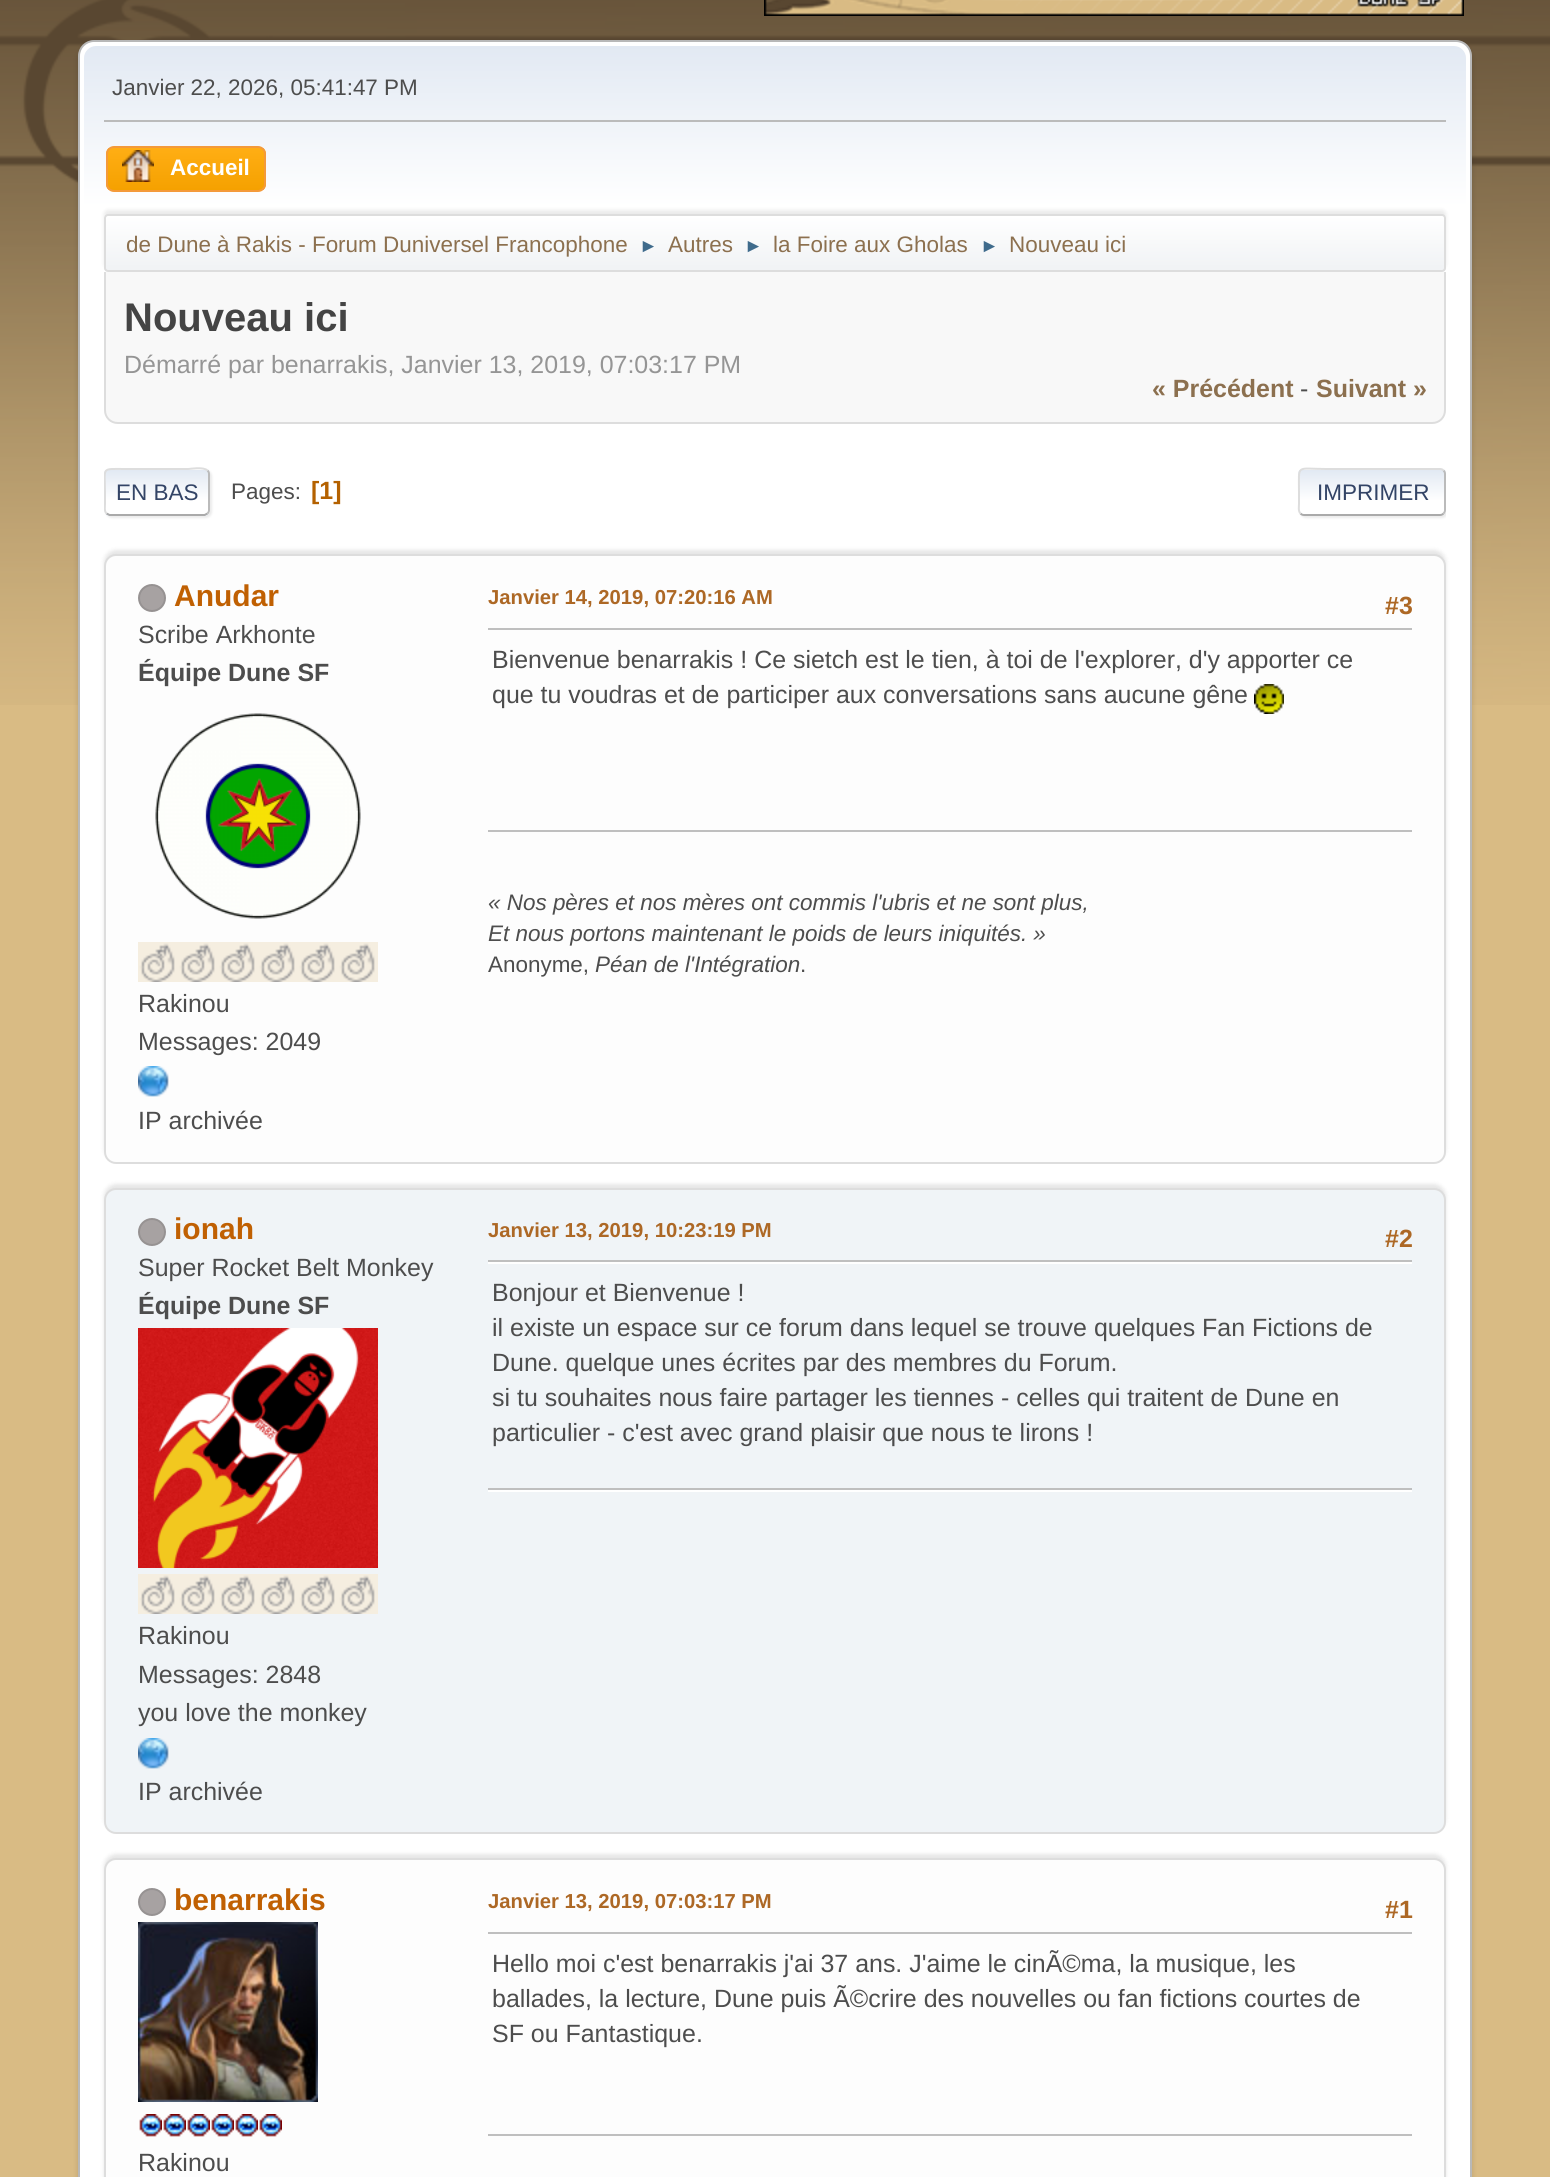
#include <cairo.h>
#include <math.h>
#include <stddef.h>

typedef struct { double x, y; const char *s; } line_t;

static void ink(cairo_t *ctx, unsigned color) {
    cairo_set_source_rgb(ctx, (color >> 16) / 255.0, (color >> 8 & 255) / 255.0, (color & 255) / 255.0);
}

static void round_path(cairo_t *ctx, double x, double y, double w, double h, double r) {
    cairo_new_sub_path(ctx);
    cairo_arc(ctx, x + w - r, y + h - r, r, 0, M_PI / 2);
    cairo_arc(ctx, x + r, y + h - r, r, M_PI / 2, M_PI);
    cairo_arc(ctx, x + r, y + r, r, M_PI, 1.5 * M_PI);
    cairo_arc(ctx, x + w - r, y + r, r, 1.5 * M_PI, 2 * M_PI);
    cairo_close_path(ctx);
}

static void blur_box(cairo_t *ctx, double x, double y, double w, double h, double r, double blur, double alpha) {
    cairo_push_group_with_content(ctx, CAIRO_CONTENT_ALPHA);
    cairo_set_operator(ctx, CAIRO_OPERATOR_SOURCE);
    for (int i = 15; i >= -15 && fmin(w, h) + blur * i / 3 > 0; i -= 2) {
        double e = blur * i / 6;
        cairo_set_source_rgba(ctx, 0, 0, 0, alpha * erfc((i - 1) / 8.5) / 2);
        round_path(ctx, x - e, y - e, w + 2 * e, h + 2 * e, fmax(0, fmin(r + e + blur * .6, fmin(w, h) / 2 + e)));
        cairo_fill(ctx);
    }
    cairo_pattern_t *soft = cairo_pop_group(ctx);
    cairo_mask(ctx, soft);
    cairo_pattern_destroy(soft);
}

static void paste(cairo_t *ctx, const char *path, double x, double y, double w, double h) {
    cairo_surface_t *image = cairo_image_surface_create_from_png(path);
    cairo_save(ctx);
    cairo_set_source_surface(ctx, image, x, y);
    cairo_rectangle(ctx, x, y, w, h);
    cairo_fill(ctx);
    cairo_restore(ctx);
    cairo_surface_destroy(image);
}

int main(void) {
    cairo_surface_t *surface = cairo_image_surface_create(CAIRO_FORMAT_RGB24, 1550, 2177);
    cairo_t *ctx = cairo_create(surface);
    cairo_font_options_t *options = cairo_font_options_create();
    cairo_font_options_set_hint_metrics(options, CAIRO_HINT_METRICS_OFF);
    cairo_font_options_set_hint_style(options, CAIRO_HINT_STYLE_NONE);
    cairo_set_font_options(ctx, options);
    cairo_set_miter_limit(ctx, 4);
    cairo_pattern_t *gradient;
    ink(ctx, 0xD9BB84);
    cairo_paint(ctx);
    paste(ctx, "media/1.png", 0, 0, 1550, 705);
    paste(ctx, "media/2.png", 764, 0, 700, 16);
    ink(ctx, 0x000000);
    blur_box(ctx, 78, 44, 1394, 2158, 16, 3, 0.14);
    ink(ctx, 0xFFFFFF);
    round_path(ctx, 79, 41, 1392, 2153, 15);
    cairo_fill_preserve(ctx);
    ink(ctx, 0xB8B8B8);
    cairo_stroke(ctx);
    gradient = cairo_pattern_create_linear(775, 46, 775, 276);
    cairo_pattern_add_color_stop_rgba(gradient, 0, 0.886, 0.914, 0.953, 1);
    cairo_pattern_add_color_stop_rgba(gradient, 0.7, 1, 1, 1, 1);
    cairo_set_source(ctx, gradient);
    cairo_pattern_destroy(gradient);
    cairo_new_path(ctx);
    cairo_move_to(ctx, 96, 46);
    cairo_line_to(ctx, 1454, 46);
    cairo_curve_to(ctx, 1460.5, 46, 1466, 51.5, 1466, 58);
    cairo_line_to(ctx, 1466, 276);
    cairo_line_to(ctx, 84, 276);
    cairo_line_to(ctx, 84, 58);
    cairo_curve_to(ctx, 84, 51.5, 89.5, 46, 96, 46);
    cairo_close_path(ctx);
    cairo_fill(ctx);
    ink(ctx, 0xBBBBBB);
    cairo_rectangle(ctx, 104, 120, 1342, 2);
    cairo_fill(ctx);
    cairo_select_font_face(ctx, "Liberation Sans", CAIRO_FONT_SLANT_NORMAL, CAIRO_FONT_WEIGHT_NORMAL);
    cairo_set_font_size(ctx, 22.45);
    ink(ctx, 0x4D4D4D);
    cairo_move_to(ctx, 112, 95);
    cairo_show_text(ctx, "Janvier 22, 2026, 05:41:47 PM");
    cairo_save(ctx);
    round_path(ctx, 106, 146, 160, 46, 8);
    cairo_clip(ctx);
    gradient = cairo_pattern_create_linear(186, 148, 186, 190);
    cairo_pattern_add_color_stop_rgba(gradient, 0, 1, 0.682, 0.078, 1);
    cairo_pattern_add_color_stop_rgba(gradient, 1, 0.961, 0.631, 0, 1);
    cairo_set_source(ctx, gradient);
    cairo_pattern_destroy(gradient);
    cairo_rectangle(ctx, 106, 148, 160, 42);
    cairo_fill(ctx);
    cairo_restore(ctx);
    round_path(ctx, 107, 147, 158, 44, 7);
    ink(ctx, 0xF49A3A);
    cairo_stroke(ctx);
    paste(ctx, "media/3.png", 122, 150, 32, 32);
    cairo_select_font_face(ctx, "Liberation Sans", CAIRO_FONT_SLANT_NORMAL, CAIRO_FONT_WEIGHT_BOLD);
    ink(ctx, 0xFFFFFF);
    cairo_move_to(ctx, 170, 175);
    cairo_show_text(ctx, "Accueil");
    ink(ctx, 0x000000);
    blur_box(ctx, 104, 210, 1342, 58, 4, 2, 0.08);
    cairo_save(ctx);
    round_path(ctx, 104, 214, 1342, 58, 4);
    cairo_clip(ctx);
    gradient = cairo_pattern_create_linear(775, 216, 775, 270);
    cairo_pattern_add_color_stop_rgba(gradient, 0, 1, 1, 1, 1);
    cairo_pattern_add_color_stop_rgba(gradient, 0.95, 0.945, 0.953, 0.961, 1);
    cairo_set_source(ctx, gradient);
    cairo_pattern_destroy(gradient);
    cairo_rectangle(ctx, 104, 216, 1342, 54);
    cairo_fill(ctx);
    cairo_restore(ctx);
    round_path(ctx, 105, 215, 1340, 56, 3);
    ink(ctx, 0xDDDDDD);
    cairo_stroke(ctx);
    cairo_select_font_face(ctx, "Liberation Sans", CAIRO_FONT_SLANT_NORMAL, CAIRO_FONT_WEIGHT_NORMAL);
    ink(ctx, 0x8C704F);
    cairo_move_to(ctx, 126, 252);
    cairo_show_text(ctx, "de Dune à Rakis - Forum Duniversel Francophone");
    cairo_set_font_size(ctx, 19);
    ink(ctx, 0x3F6B8C);
    cairo_move_to(ctx, 639, 252);
    cairo_show_text(ctx, "►");
    cairo_set_font_size(ctx, 22.45);
    ink(ctx, 0x8C704F);
    cairo_move_to(ctx, 668, 252);
    cairo_show_text(ctx, "Autres");
    cairo_set_font_size(ctx, 19);
    ink(ctx, 0x3F6B8C);
    cairo_move_to(ctx, 744, 252);
    cairo_show_text(ctx, "►");
    cairo_set_font_size(ctx, 22.45);
    ink(ctx, 0x8C704F);
    cairo_move_to(ctx, 773, 252);
    cairo_show_text(ctx, "la Foire aux Gholas");
    cairo_set_font_size(ctx, 19);
    ink(ctx, 0x3F6B8C);
    cairo_move_to(ctx, 980, 252);
    cairo_show_text(ctx, "►");
    cairo_set_font_size(ctx, 22.45);
    ink(ctx, 0x8C704F);
    cairo_move_to(ctx, 1009, 252);
    cairo_show_text(ctx, "Nouveau ici");
    ink(ctx, 0xF8F8F8);
    cairo_new_path(ctx);
    cairo_move_to(ctx, 104, 272);
    cairo_line_to(ctx, 1446, 272);
    cairo_line_to(ctx, 1446, 410);
    cairo_curve_to(ctx, 1446, 417.5, 1439.5, 424, 1432, 424);
    cairo_line_to(ctx, 118, 424);
    cairo_curve_to(ctx, 110.5, 424, 104, 417.5, 104, 410);
    cairo_close_path(ctx);
    cairo_fill(ctx);
    ink(ctx, 0xDDDDDD);
    cairo_set_fill_rule(ctx, CAIRO_FILL_RULE_EVEN_ODD);
    cairo_new_path(ctx);
    cairo_move_to(ctx, 104, 272);
    cairo_line_to(ctx, 1446, 272);
    cairo_line_to(ctx, 1446, 410);
    cairo_curve_to(ctx, 1446, 418, 1440, 424, 1432, 424);
    cairo_line_to(ctx, 118, 424);
    cairo_curve_to(ctx, 110, 424, 104, 418, 104, 410);
    cairo_close_path(ctx);
    cairo_move_to(ctx, 106, 272);
    cairo_line_to(ctx, 1444, 272);
    cairo_line_to(ctx, 1444, 410);
    cairo_curve_to(ctx, 1444, 417, 1439, 422, 1432, 422);
    cairo_line_to(ctx, 118, 422);
    cairo_curve_to(ctx, 111, 422, 106, 417, 106, 410);
    cairo_close_path(ctx);
    cairo_fill(ctx);
    cairo_select_font_face(ctx, "Liberation Sans", CAIRO_FONT_SLANT_NORMAL, CAIRO_FONT_WEIGHT_BOLD);
    cairo_set_font_size(ctx, 40);
    ink(ctx, 0x444444);
    cairo_move_to(ctx, 124, 331);
    cairo_show_text(ctx, "Nouveau ici");
    cairo_select_font_face(ctx, "Liberation Sans", CAIRO_FONT_SLANT_NORMAL, CAIRO_FONT_WEIGHT_NORMAL);
    cairo_set_font_size(ctx, 24.95);
    ink(ctx, 0x959595);
    cairo_move_to(ctx, 124, 373);
    cairo_show_text(ctx, "Démarré par benarrakis, Janvier 13, 2019, 07:03:17 PM");
    cairo_select_font_face(ctx, "Liberation Sans", CAIRO_FONT_SLANT_NORMAL, CAIRO_FONT_WEIGHT_BOLD);
    ink(ctx, 0x8C704F);
    cairo_move_to(ctx, 1152, 397);
    cairo_show_text(ctx, "« Précédent");
    cairo_select_font_face(ctx, "Liberation Sans", CAIRO_FONT_SLANT_NORMAL, CAIRO_FONT_WEIGHT_NORMAL);
    ink(ctx, 0x4D4D4D);
    cairo_move_to(ctx, 1300, 397);
    cairo_show_text(ctx, "-");
    cairo_select_font_face(ctx, "Liberation Sans", CAIRO_FONT_SLANT_NORMAL, CAIRO_FONT_WEIGHT_BOLD);
    ink(ctx, 0x8C704F);
    cairo_move_to(ctx, 1316, 397);
    cairo_show_text(ctx, "Suivant »");
    ink(ctx, 0xDDDDDD);
    blur_box(ctx, 106, 470, 106, 48, 6, 1, 0.57);
    ink(ctx, 0xFFFFFF);
    round_path(ctx, 104, 468, 106, 48, 6);
    cairo_fill(ctx);
    cairo_save(ctx);
    cairo_set_fill_rule(ctx, CAIRO_FILL_RULE_WINDING);
    round_path(ctx, 104, 468, 106, 48, 6);
    cairo_clip(ctx);
    gradient = cairo_pattern_create_linear(157, 470, 157, 514);
    cairo_pattern_add_color_stop_rgba(gradient, 0, 0.886, 0.914, 0.953, 1);
    cairo_pattern_add_color_stop_rgba(gradient, 0.7, 1, 1, 1, 1);
    cairo_set_source(ctx, gradient);
    cairo_pattern_destroy(gradient);
    cairo_rectangle(ctx, 104, 470, 106, 44);
    cairo_fill(ctx);
    gradient = cairo_pattern_create_linear(157, 514, 157, 558);
    cairo_pattern_add_color_stop_rgba(gradient, 0, 0.886, 0.914, 0.953, 1);
    cairo_pattern_add_color_stop_rgba(gradient, 0.7, 1, 1, 1, 1);
    cairo_set_source(ctx, gradient);
    cairo_pattern_destroy(gradient);
    cairo_rectangle(ctx, 104, 514, 106, 2);
    cairo_fill(ctx);
    cairo_restore(ctx);
    cairo_new_path(ctx);
    cairo_move_to(ctx, 207.5, 470.5);
    cairo_curve_to(ctx, 208.5, 471.5, 209, 472.5, 209, 474);
    cairo_line_to(ctx, 209, 510);
    cairo_curve_to(ctx, 209, 511.5, 208.5, 512.5, 207.5, 513.5);
    ink(ctx, 0xBBBBBB);
    cairo_stroke(ctx);
    cairo_new_path(ctx);
    cairo_move_to(ctx, 207.5, 513.5);
    cairo_line_to(ctx, 204.5, 515);
    cairo_line_to(ctx, 109.5, 515);
    cairo_line_to(ctx, 106.5, 513.5);
    ink(ctx, 0xAAAAAA);
    cairo_stroke(ctx);
    cairo_save(ctx);
    cairo_set_fill_rule(ctx, CAIRO_FILL_RULE_WINDING);
    cairo_rectangle(ctx, 104, 454, 1342, 76);
    cairo_clip(ctx);
    cairo_new_path(ctx);
    cairo_move_to(ctx, 106.5, 513.5);
    cairo_curve_to(ctx, 104, 511, 105, 506.5, 105, 504);
    cairo_line_to(ctx, 105, 492);
    cairo_curve_to(ctx, 105, 466.5, 100.5, 469, 125.5, 469);
    cairo_line_to(ctx, 188.5, 469);
    cairo_curve_to(ctx, 189.5, 469, 203.5, 466.5, 207.5, 470.5);
    ink(ctx, 0xDDDDDD);
    cairo_stroke(ctx);
    cairo_restore(ctx);
    cairo_select_font_face(ctx, "Liberation Sans", CAIRO_FONT_SLANT_NORMAL, CAIRO_FONT_WEIGHT_NORMAL);
    cairo_set_font_size(ctx, 22.5);
    ink(ctx, 0x334466);
    cairo_move_to(ctx, 116, 500);
    cairo_show_text(ctx, "EN BAS");
    cairo_set_font_size(ctx, 22.45);
    ink(ctx, 0x4D4D4D);
    cairo_move_to(ctx, 231, 499);
    cairo_show_text(ctx, "Pages:");
    cairo_select_font_face(ctx, "Liberation Sans", CAIRO_FONT_SLANT_NORMAL, CAIRO_FONT_WEIGHT_BOLD);
    cairo_set_font_size(ctx, 24.95);
    ink(ctx, 0xB46100);
    cairo_move_to(ctx, 311, 499);
    cairo_show_text(ctx, "[1]");
    cairo_save(ctx);
    cairo_set_fill_rule(ctx, CAIRO_FILL_RULE_WINDING);
    cairo_rectangle(ctx, 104, 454, 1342, 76);
    cairo_clip(ctx);
    ink(ctx, 0xDDDDDD);
    blur_box(ctx, 1300, 470, 148, 48, 6, 1, 0.57);
    cairo_restore(ctx);
    ink(ctx, 0xFFFFFF);
    round_path(ctx, 1298, 468, 148, 48, 6);
    cairo_fill(ctx);
    cairo_save(ctx);
    cairo_set_fill_rule(ctx, CAIRO_FILL_RULE_WINDING);
    round_path(ctx, 1298, 468, 148, 48, 6);
    cairo_clip(ctx);
    gradient = cairo_pattern_create_linear(1372, 470, 1372, 514);
    cairo_pattern_add_color_stop_rgba(gradient, 0, 0.886, 0.914, 0.953, 1);
    cairo_pattern_add_color_stop_rgba(gradient, 0.7, 1, 1, 1, 1);
    cairo_set_source(ctx, gradient);
    cairo_pattern_destroy(gradient);
    cairo_rectangle(ctx, 1298, 470, 148, 44);
    cairo_fill(ctx);
    cairo_restore(ctx);
    cairo_new_path(ctx);
    cairo_move_to(ctx, 1443.5, 470.5);
    cairo_curve_to(ctx, 1444.5, 471.5, 1445, 472.5, 1445, 474);
    cairo_line_to(ctx, 1445, 510);
    cairo_curve_to(ctx, 1445, 511.5, 1444.5, 512.5, 1443.5, 513.5);
    ink(ctx, 0xBBBBBB);
    cairo_stroke(ctx);
    cairo_new_path(ctx);
    cairo_move_to(ctx, 1443.5, 513.5);
    cairo_curve_to(ctx, 1442.5, 514.5, 1441.5, 515, 1440, 515);
    cairo_line_to(ctx, 1304, 515);
    cairo_curve_to(ctx, 1302.5, 515, 1301.5, 514.5, 1300.5, 513.5);
    ink(ctx, 0xAAAAAA);
    cairo_stroke(ctx);
    cairo_new_path(ctx);
    cairo_move_to(ctx, 1300.5, 513.5);
    cairo_curve_to(ctx, 1298, 511, 1299, 506.5, 1299, 504);
    cairo_line_to(ctx, 1299, 492);
    cairo_curve_to(ctx, 1299, 463.5, 1295.5, 469, 1326.5, 469);
    cairo_line_to(ctx, 1440, 469);
    cairo_curve_to(ctx, 1441.5, 469, 1442.5, 469.5, 1443.5, 470.5);
    ink(ctx, 0xDDDDDD);
    cairo_stroke(ctx);
    cairo_select_font_face(ctx, "Liberation Sans", CAIRO_FONT_SLANT_NORMAL, CAIRO_FONT_WEIGHT_NORMAL);
    cairo_set_font_size(ctx, 22.5);
    ink(ctx, 0x334466);
    cairo_move_to(ctx, 1317, 500);
    cairo_show_text(ctx, "IMPRIMER");
    ink(ctx, 0x000000);
    blur_box(ctx, 104, 550, 1342, 610, 12, 2, 0.1);
    ink(ctx, 0xFDFDFD);
    round_path(ctx, 105, 555, 1340, 608, 11);
    cairo_fill_preserve(ctx);
    ink(ctx, 0xDDDDDD);
    cairo_stroke(ctx);
    ink(ctx, 0xA7A2A2);
    cairo_arc(ctx, 152, 598, 13, 0, 2 * M_PI);
    cairo_fill_preserve(ctx);
    ink(ctx, 0x969292);
    cairo_stroke(ctx);
    cairo_select_font_face(ctx, "Liberation Sans", CAIRO_FONT_SLANT_NORMAL, CAIRO_FONT_WEIGHT_BOLD);
    cairo_set_font_size(ctx, 30);
    ink(ctx, 0xC06002);
    cairo_move_to(ctx, 174, 606);
    cairo_show_text(ctx, "Anudar");
    cairo_select_font_face(ctx, "Liberation Sans", CAIRO_FONT_SLANT_NORMAL, CAIRO_FONT_WEIGHT_NORMAL);
    cairo_set_font_size(ctx, 24.95);
    ink(ctx, 0x4D4D4D);
    cairo_move_to(ctx, 138, 643);
    cairo_show_text(ctx, "Scribe Arkhonte");
    cairo_select_font_face(ctx, "Liberation Sans", CAIRO_FONT_SLANT_NORMAL, CAIRO_FONT_WEIGHT_BOLD);
    cairo_move_to(ctx, 138, 681);
    cairo_show_text(ctx, "Équipe Dune SF");
    paste(ctx, "media/4.png", 155, 713, 206, 206);
    paste(ctx, "media/5.png", 138, 942, 40, 40);
    paste(ctx, "media/5.png", 178, 942, 40, 40);
    paste(ctx, "media/5.png", 218, 942, 40, 40);
    paste(ctx, "media/5.png", 258, 942, 40, 40);
    paste(ctx, "media/5.png", 298, 942, 40, 40);
    paste(ctx, "media/5.png", 338, 942, 40, 40);
    cairo_select_font_face(ctx, "Liberation Sans", CAIRO_FONT_SLANT_NORMAL, CAIRO_FONT_WEIGHT_NORMAL);
    cairo_move_to(ctx, 138, 1012);
    cairo_show_text(ctx, "Rakinou");
    cairo_move_to(ctx, 138, 1050);
    cairo_show_text(ctx, "Messages: 2049");
    paste(ctx, "media/6.png", 138, 1066, 31, 31);
    cairo_move_to(ctx, 138, 1129);
    cairo_show_text(ctx, "IP archivée");
    cairo_select_font_face(ctx, "Liberation Sans", CAIRO_FONT_SLANT_NORMAL, CAIRO_FONT_WEIGHT_BOLD);
    cairo_set_font_size(ctx, 20.25);
    ink(ctx, 0xAD6825);
    cairo_move_to(ctx, 488, 604);
    cairo_show_text(ctx, "Janvier 14, 2019, 07:20:16 AM");
    cairo_set_font_size(ctx, 24.95);
    cairo_move_to(ctx, 1385, 614);
    cairo_show_text(ctx, "#3");
    ink(ctx, 0xBFBFBF);
    cairo_rectangle(ctx, 488, 628, 924, 2);
    cairo_fill(ctx);
    cairo_select_font_face(ctx, "Liberation Sans", CAIRO_FONT_SLANT_NORMAL, CAIRO_FONT_WEIGHT_NORMAL);
    ink(ctx, 0x4D4D4D);
    cairo_move_to(ctx, 492, 668);
    cairo_show_text(ctx, "Bienvenue benarrakis ! Ce sietch est le tien, à toi de l'explorer, d'y apporter ce");
    cairo_move_to(ctx, 492, 703);
    cairo_show_text(ctx, "que tu voudras et de participer aux conversations sans aucune gêne");
    paste(ctx, "media/7.png", 1254, 684, 30, 30);
    ink(ctx, 0xBFBFBF);
    cairo_rectangle(ctx, 488, 830, 924, 2);
    cairo_fill(ctx);
    cairo_select_font_face(ctx, "Liberation Sans", CAIRO_FONT_SLANT_ITALIC, CAIRO_FONT_WEIGHT_NORMAL);
    cairo_set_font_size(ctx, 22.45);
    ink(ctx, 0x4D4D4D);
    cairo_move_to(ctx, 488, 910);
    cairo_show_text(ctx, "« Nos pères et nos mères ont commis l'ubris et ne sont plus,");
    cairo_move_to(ctx, 488, 941);
    cairo_show_text(ctx, "Et nous portons maintenant le poids de leurs iniquités. »");
    cairo_select_font_face(ctx, "Liberation Sans", CAIRO_FONT_SLANT_NORMAL, CAIRO_FONT_WEIGHT_NORMAL);
    cairo_move_to(ctx, 488, 972);
    cairo_show_text(ctx, "Anonyme,");
    cairo_select_font_face(ctx, "Liberation Sans", CAIRO_FONT_SLANT_ITALIC, CAIRO_FONT_WEIGHT_NORMAL);
    cairo_move_to(ctx, 595, 972);
    cairo_show_text(ctx, "Péan de l'Intégration");
    cairo_select_font_face(ctx, "Liberation Sans", CAIRO_FONT_SLANT_NORMAL, CAIRO_FONT_WEIGHT_NORMAL);
    cairo_move_to(ctx, 800, 972);
    cairo_show_text(ctx, ".");
    ink(ctx, 0x000000);
    blur_box(ctx, 104, 1184, 1342, 646, 12, 2, 0.1);
    ink(ctx, 0xF0F4F7);
    round_path(ctx, 105, 1189, 1340, 644, 11);
    cairo_fill_preserve(ctx);
    ink(ctx, 0xDDDDDD);
    cairo_stroke(ctx);
    ink(ctx, 0xA7A2A2);
    cairo_arc(ctx, 152, 1232, 13, 0, 2 * M_PI);
    cairo_fill_preserve(ctx);
    ink(ctx, 0x969292);
    cairo_stroke(ctx);
    cairo_select_font_face(ctx, "Liberation Sans", CAIRO_FONT_SLANT_NORMAL, CAIRO_FONT_WEIGHT_BOLD);
    cairo_set_font_size(ctx, 30);
    ink(ctx, 0xC06002);
    cairo_move_to(ctx, 174, 1239);
    cairo_show_text(ctx, "ionah");
    cairo_select_font_face(ctx, "Liberation Sans", CAIRO_FONT_SLANT_NORMAL, CAIRO_FONT_WEIGHT_NORMAL);
    cairo_set_font_size(ctx, 24.95);
    ink(ctx, 0x4D4D4D);
    cairo_move_to(ctx, 138, 1276);
    cairo_show_text(ctx, "Super Rocket Belt Monkey");
    cairo_select_font_face(ctx, "Liberation Sans", CAIRO_FONT_SLANT_NORMAL, CAIRO_FONT_WEIGHT_BOLD);
    cairo_move_to(ctx, 138, 1314);
    cairo_show_text(ctx, "Équipe Dune SF");
    paste(ctx, "media/8.png", 138, 1328, 240, 240);
    paste(ctx, "media/5.png", 138, 1574, 40, 40);
    paste(ctx, "media/5.png", 178, 1574, 40, 40);
    paste(ctx, "media/5.png", 218, 1574, 40, 40);
    paste(ctx, "media/5.png", 258, 1574, 40, 40);
    paste(ctx, "media/5.png", 298, 1574, 40, 40);
    paste(ctx, "media/5.png", 338, 1574, 40, 40);
    cairo_select_font_face(ctx, "Liberation Sans", CAIRO_FONT_SLANT_NORMAL, CAIRO_FONT_WEIGHT_NORMAL);
    {
        static const line_t items[] = {
            {138, 1644, "Rakinou"},
            {138, 1683, "Messages: 2848"},
            {138, 1721, "you love the monkey"},
        };
        for (size_t i = 0; i < sizeof items / sizeof *items; i++) {
            cairo_move_to(ctx, items[i].x, items[i].y);
            cairo_show_text(ctx, items[i].s);
        }
    }
    paste(ctx, "media/9.png", 138, 1738, 31, 31);
    cairo_move_to(ctx, 138, 1800);
    cairo_show_text(ctx, "IP archivée");
    cairo_select_font_face(ctx, "Liberation Sans", CAIRO_FONT_SLANT_NORMAL, CAIRO_FONT_WEIGHT_BOLD);
    cairo_set_font_size(ctx, 20.25);
    ink(ctx, 0xAD6825);
    cairo_move_to(ctx, 488, 1237);
    cairo_show_text(ctx, "Janvier 13, 2019, 10:23:19 PM");
    cairo_set_font_size(ctx, 24.95);
    cairo_move_to(ctx, 1385, 1247);
    cairo_show_text(ctx, "#2");
    ink(ctx, 0xFFFFFF);
    cairo_rectangle(ctx, 488, 1262, 924, 2);
    cairo_fill(ctx);
    ink(ctx, 0xBFBFBF);
    cairo_rectangle(ctx, 488, 1260, 924, 2);
    cairo_fill(ctx);
    cairo_select_font_face(ctx, "Liberation Sans", CAIRO_FONT_SLANT_NORMAL, CAIRO_FONT_WEIGHT_NORMAL);
    ink(ctx, 0x4D4D4D);
    {
        static const line_t items[] = {
            {492, 1301, "Bonjour et Bienvenue !"},
            {492, 1336, "il existe un espace sur ce forum dans lequel se trouve quelques Fan Fictions de"},
            {492, 1371, "Dune. quelque unes écrites par des membres du Forum."},
            {492, 1406, "si tu souhaites nous faire partager les tiennes - celles qui traitent de Dune en"},
            {492, 1441, "particulier - c'est avec grand plaisir que nous te lirons !"},
        };
        for (size_t i = 0; i < sizeof items / sizeof *items; i++) {
            cairo_move_to(ctx, items[i].x, items[i].y);
            cairo_show_text(ctx, items[i].s);
        }
    }
    ink(ctx, 0xFFFFFF);
    cairo_rectangle(ctx, 488, 1490, 924, 2);
    cairo_fill(ctx);
    ink(ctx, 0xBFBFBF);
    cairo_rectangle(ctx, 488, 1488, 924, 2);
    cairo_fill(ctx);
    ink(ctx, 0x000000);
    blur_box(ctx, 104, 1854, 1342, 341, 12, 2, 0.1);
    ink(ctx, 0xFDFDFD);
    round_path(ctx, 105, 1859, 1340, 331, 11);
    cairo_fill_preserve(ctx);
    ink(ctx, 0xDDDDDD);
    cairo_stroke(ctx);
    ink(ctx, 0xA7A2A2);
    cairo_arc(ctx, 152, 1902, 13, 0, 2 * M_PI);
    cairo_fill_preserve(ctx);
    ink(ctx, 0x969292);
    cairo_stroke(ctx);
    cairo_select_font_face(ctx, "Liberation Sans", CAIRO_FONT_SLANT_NORMAL, CAIRO_FONT_WEIGHT_BOLD);
    cairo_set_font_size(ctx, 30);
    ink(ctx, 0xC06002);
    cairo_move_to(ctx, 174, 1910);
    cairo_show_text(ctx, "benarrakis");
    paste(ctx, "media/10.png", 138, 1922, 180, 180);
    paste(ctx, "media/11.png", 139, 2114, 23, 23);
    paste(ctx, "media/11.png", 163, 2114, 23, 23);
    paste(ctx, "media/11.png", 187, 2114, 23, 23);
    paste(ctx, "media/11.png", 211, 2114, 23, 23);
    paste(ctx, "media/11.png", 235, 2114, 23, 23);
    paste(ctx, "media/11.png", 259, 2114, 23, 23);
    cairo_select_font_face(ctx, "Liberation Sans", CAIRO_FONT_SLANT_NORMAL, CAIRO_FONT_WEIGHT_NORMAL);
    cairo_set_font_size(ctx, 24.95);
    ink(ctx, 0x4D4D4D);
    cairo_move_to(ctx, 138, 2171);
    cairo_show_text(ctx, "Rakinou");
    cairo_select_font_face(ctx, "Liberation Sans", CAIRO_FONT_SLANT_NORMAL, CAIRO_FONT_WEIGHT_BOLD);
    cairo_set_font_size(ctx, 20.25);
    ink(ctx, 0xAD6825);
    cairo_move_to(ctx, 488, 1908);
    cairo_show_text(ctx, "Janvier 13, 2019, 07:03:17 PM");
    cairo_set_font_size(ctx, 24.95);
    cairo_move_to(ctx, 1385, 1918);
    cairo_show_text(ctx, "#1");
    ink(ctx, 0xBFBFBF);
    cairo_rectangle(ctx, 488, 1932, 924, 2);
    cairo_fill(ctx);
    cairo_select_font_face(ctx, "Liberation Sans", CAIRO_FONT_SLANT_NORMAL, CAIRO_FONT_WEIGHT_NORMAL);
    ink(ctx, 0x4D4D4D);
    {
        static const line_t items[] = {
            {492, 1972, "Hello moi c'est benarrakis j'ai 37 ans. J'aime le cinÃ©ma, la musique, les"},
            {492, 2007, "ballades, la lecture, Dune puis Ã©crire des nouvelles ou fan fictions courtes de"},
            {492, 2042, "SF ou Fantastique."},
        };
        for (size_t i = 0; i < sizeof items / sizeof *items; i++) {
            cairo_move_to(ctx, items[i].x, items[i].y);
            cairo_show_text(ctx, items[i].s);
        }
    }
    ink(ctx, 0xBFBFBF);
    cairo_rectangle(ctx, 488, 2134, 924, 2);
    cairo_fill(ctx);
    cairo_surface_write_to_png(surface, "image.png");
    cairo_font_options_destroy(options);
    cairo_destroy(ctx);
    cairo_surface_destroy(surface);
    return 0;
}
